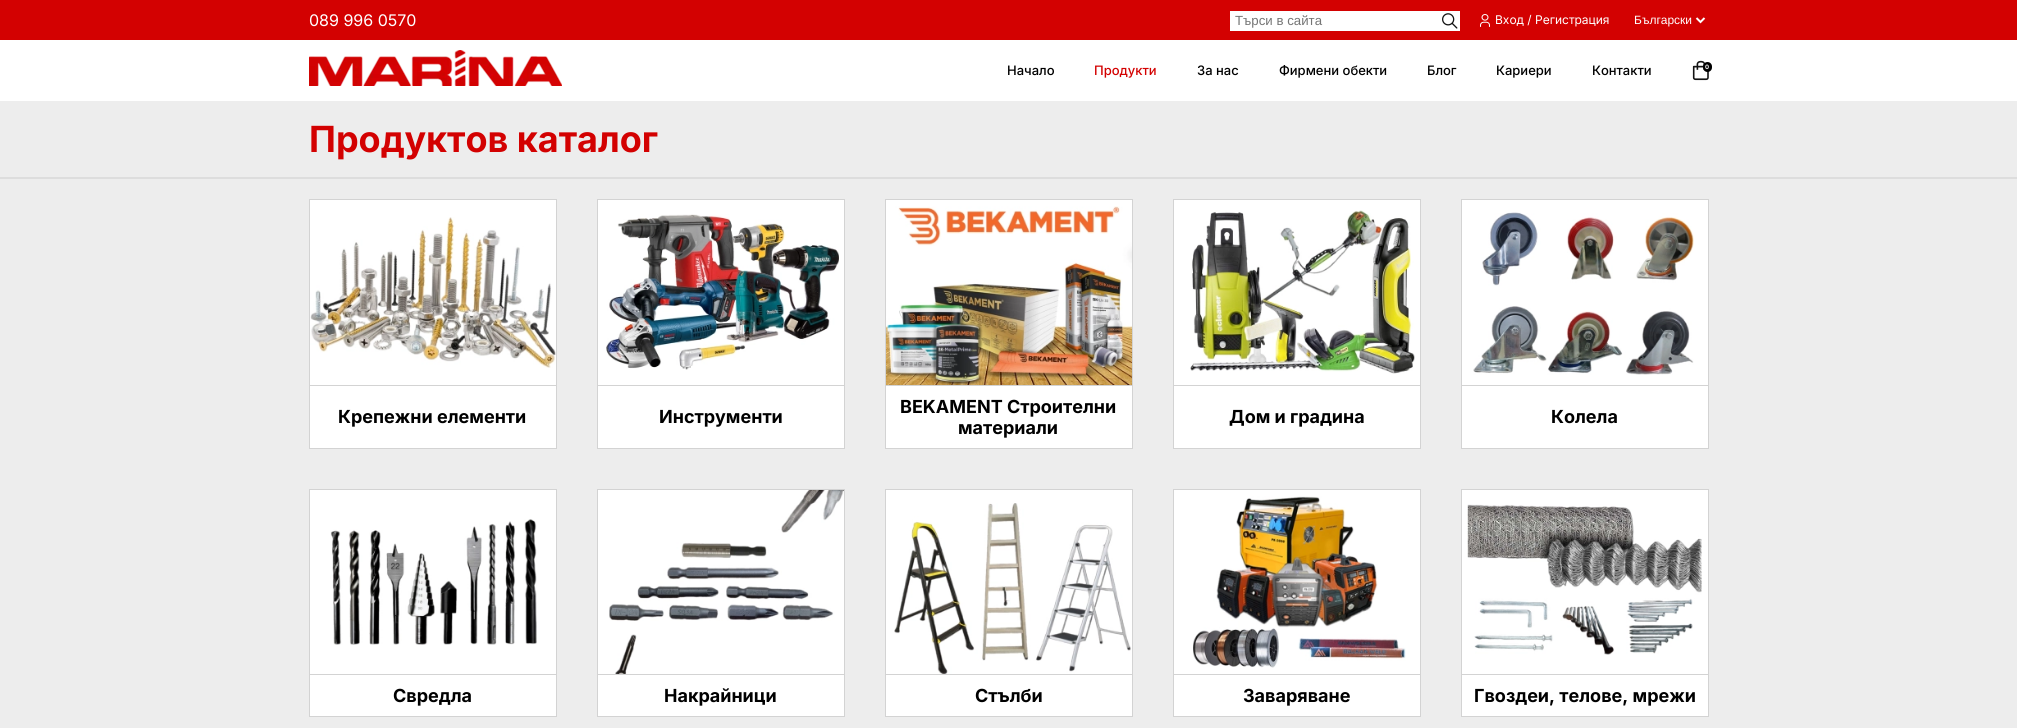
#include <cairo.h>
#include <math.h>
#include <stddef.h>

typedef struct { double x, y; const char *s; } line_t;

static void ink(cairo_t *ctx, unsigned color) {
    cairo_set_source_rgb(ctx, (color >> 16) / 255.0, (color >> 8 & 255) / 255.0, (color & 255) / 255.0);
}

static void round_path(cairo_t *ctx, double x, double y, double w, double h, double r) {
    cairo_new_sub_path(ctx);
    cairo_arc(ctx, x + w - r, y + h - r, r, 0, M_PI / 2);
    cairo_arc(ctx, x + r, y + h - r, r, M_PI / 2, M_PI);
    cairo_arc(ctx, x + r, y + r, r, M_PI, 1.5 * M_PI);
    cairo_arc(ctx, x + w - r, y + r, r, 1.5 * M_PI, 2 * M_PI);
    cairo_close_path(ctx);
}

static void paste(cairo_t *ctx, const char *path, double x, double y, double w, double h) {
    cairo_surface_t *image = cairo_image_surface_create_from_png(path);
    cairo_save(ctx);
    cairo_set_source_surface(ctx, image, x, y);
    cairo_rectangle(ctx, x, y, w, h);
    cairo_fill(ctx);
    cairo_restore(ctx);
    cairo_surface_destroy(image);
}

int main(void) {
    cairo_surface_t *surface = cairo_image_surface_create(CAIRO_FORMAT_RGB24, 2017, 728);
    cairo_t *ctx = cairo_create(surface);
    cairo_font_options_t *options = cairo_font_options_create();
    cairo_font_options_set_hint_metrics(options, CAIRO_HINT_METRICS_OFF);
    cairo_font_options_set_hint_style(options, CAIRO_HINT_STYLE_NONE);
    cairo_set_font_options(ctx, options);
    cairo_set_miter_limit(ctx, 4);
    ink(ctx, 0xEDEDED);
    cairo_paint(ctx);
    ink(ctx, 0xFFFFFF);
    cairo_rectangle(ctx, 0, 40, 2017, 61);
    cairo_fill(ctx);
    ink(ctx, 0xD30101);
    cairo_rectangle(ctx, 0, 0, 2017, 40);
    cairo_fill(ctx);
    cairo_select_font_face(ctx, "Inter", CAIRO_FONT_SLANT_NORMAL, CAIRO_FONT_WEIGHT_NORMAL);
    cairo_set_font_size(ctx, 16);
    ink(ctx, 0xFFFFFF);
    cairo_move_to(ctx, 309, 26);
    cairo_show_text(ctx, "089 996 0570");
    cairo_rectangle(ctx, 1230, 11, 230, 20);
    cairo_fill(ctx);
    cairo_select_font_face(ctx, "Liberation Sans", CAIRO_FONT_SLANT_NORMAL, CAIRO_FONT_WEIGHT_NORMAL);
    cairo_set_font_size(ctx, 13.25);
    ink(ctx, 0x757575);
    cairo_move_to(ctx, 1235, 25);
    cairo_show_text(ctx, "Търси в сайта");
    paste(ctx, "media/1.png", 1442, 13, 16, 16);
    paste(ctx, "media/2.png", 1480, 14, 10, 13);
    cairo_select_font_face(ctx, "Inter", CAIRO_FONT_SLANT_NORMAL, CAIRO_FONT_WEIGHT_NORMAL);
    cairo_set_font_size(ctx, 12);
    ink(ctx, 0xFFFFFF);
    cairo_move_to(ctx, 1495, 24);
    cairo_show_text(ctx, "Вход / Регистрация");
    cairo_new_path(ctx);
    cairo_move_to(ctx, 1696.5, 18);
    cairo_line_to(ctx, 1700.5, 22);
    cairo_line_to(ctx, 1704.5, 18);
    cairo_stroke(ctx);
    cairo_select_font_face(ctx, "Liberation Sans", CAIRO_FONT_SLANT_NORMAL, CAIRO_FONT_WEIGHT_NORMAL);
    cairo_move_to(ctx, 1634, 24);
    cairo_show_text(ctx, "Български");
    paste(ctx, "media/3.png", 309, 50, 253, 36);
    cairo_select_font_face(ctx, "Inter Medium", CAIRO_FONT_SLANT_NORMAL, CAIRO_FONT_WEIGHT_NORMAL);
    cairo_set_font_size(ctx, 13);
    ink(ctx, 0x000000);
    cairo_move_to(ctx, 1007, 75);
    cairo_show_text(ctx, "Начало");
    ink(ctx, 0xD30101);
    cairo_move_to(ctx, 1094, 75);
    cairo_show_text(ctx, "Продукти");
    ink(ctx, 0x000000);
    {
        static const line_t items[] = {
            {1197, 75, "За нас"},
            {1279, 75, "Фирмени обекти"},
            {1427, 75, "Блог"},
            {1496, 75, "Кариери"},
            {1592, 75, "Контакти"},
        };
        for (size_t i = 0; i < sizeof items / sizeof *items; i++) {
            cairo_move_to(ctx, items[i].x, items[i].y);
            cairo_show_text(ctx, items[i].s);
        }
    }
    paste(ctx, "media/4.png", 1692, 60, 17, 21);
    round_path(ctx, 1703, 62, 9, 10, 4.5);
    cairo_fill(ctx);
    cairo_select_font_face(ctx, "Inter", CAIRO_FONT_SLANT_NORMAL, CAIRO_FONT_WEIGHT_BOLD);
    cairo_set_font_size(ctx, 6);
    ink(ctx, 0xFFFFFF);
    cairo_move_to(ctx, 1705, 69);
    cairo_show_text(ctx, "0");
    ink(ctx, 0xDDDDDD);
    cairo_rectangle(ctx, 0, 177, 2017, 2);
    cairo_fill(ctx);
    cairo_set_font_size(ctx, 36);
    ink(ctx, 0xD30101);
    cairo_move_to(ctx, 309, 152);
    cairo_show_text(ctx, "Продуктов каталог");
    ink(ctx, 0xFFFFFF);
    cairo_rectangle(ctx, 309.5, 199.5, 247, 249);
    cairo_fill_preserve(ctx);
    ink(ctx, 0xD3D3D3);
    cairo_set_line_width(ctx, 1);
    cairo_stroke(ctx);
    paste(ctx, "media/5.png", 310, 217, 246, 151);
    cairo_rectangle(ctx, 310, 385, 246, 1);
    cairo_fill(ctx);
    cairo_set_font_size(ctx, 18);
    ink(ctx, 0x000000);
    cairo_move_to(ctx, 338, 423);
    cairo_show_text(ctx, "Крепежни елементи");
    ink(ctx, 0xFFFFFF);
    cairo_rectangle(ctx, 597.5, 199.5, 247, 249);
    cairo_fill_preserve(ctx);
    ink(ctx, 0xD3D3D3);
    cairo_stroke(ctx);
    paste(ctx, "media/6.png", 606, 214, 233, 156);
    cairo_rectangle(ctx, 598, 385, 246, 1);
    cairo_fill(ctx);
    ink(ctx, 0x000000);
    cairo_move_to(ctx, 659, 423);
    cairo_show_text(ctx, "Инструменти");
    ink(ctx, 0xFFFFFF);
    cairo_rectangle(ctx, 885.5, 199.5, 247, 249);
    cairo_fill_preserve(ctx);
    ink(ctx, 0xD3D3D3);
    cairo_stroke(ctx);
    paste(ctx, "media/7.png", 886, 206, 246, 179);
    cairo_rectangle(ctx, 886, 385, 246, 1);
    cairo_fill(ctx);
    ink(ctx, 0x000000);
    cairo_move_to(ctx, 900, 413);
    cairo_show_text(ctx, "BEKAMENT Строителни");
    cairo_move_to(ctx, 958, 434);
    cairo_show_text(ctx, "материали");
    ink(ctx, 0xFFFFFF);
    cairo_rectangle(ctx, 1173.5, 199.5, 247, 249);
    cairo_fill_preserve(ctx);
    ink(ctx, 0xD3D3D3);
    cairo_stroke(ctx);
    paste(ctx, "media/8.png", 1190, 210, 225, 164);
    cairo_rectangle(ctx, 1174, 385, 246, 1);
    cairo_fill(ctx);
    ink(ctx, 0x000000);
    cairo_move_to(ctx, 1229, 423);
    cairo_show_text(ctx, "Дом и градина");
    ink(ctx, 0xFFFFFF);
    cairo_rectangle(ctx, 1461.5, 199.5, 247, 249);
    cairo_fill_preserve(ctx);
    ink(ctx, 0xD3D3D3);
    cairo_stroke(ctx);
    paste(ctx, "media/9.png", 1473, 212, 221, 163);
    cairo_rectangle(ctx, 1462, 385, 246, 1);
    cairo_fill(ctx);
    ink(ctx, 0x000000);
    cairo_move_to(ctx, 1551, 423);
    cairo_show_text(ctx, "Колела");
    ink(ctx, 0xFFFFFF);
    cairo_rectangle(ctx, 309.5, 489.5, 247, 227);
    cairo_fill_preserve(ctx);
    ink(ctx, 0xD3D3D3);
    cairo_stroke(ctx);
    paste(ctx, "media/10.png", 330, 519, 207, 126);
    cairo_rectangle(ctx, 310, 674, 246, 1);
    cairo_fill(ctx);
    ink(ctx, 0x000000);
    cairo_move_to(ctx, 393, 702);
    cairo_show_text(ctx, "Свредла");
    ink(ctx, 0xFFFFFF);
    cairo_rectangle(ctx, 597.5, 489.5, 247, 227);
    cairo_fill_preserve(ctx);
    ink(ctx, 0xD3D3D3);
    cairo_stroke(ctx);
    paste(ctx, "media/11.png", 609, 490, 235, 184);
    cairo_rectangle(ctx, 598, 674, 246, 1);
    cairo_fill(ctx);
    ink(ctx, 0x000000);
    cairo_move_to(ctx, 664, 702);
    cairo_show_text(ctx, "Накрайници");
    ink(ctx, 0xFFFFFF);
    cairo_rectangle(ctx, 885.5, 489.5, 247, 227);
    cairo_fill_preserve(ctx);
    ink(ctx, 0xD3D3D3);
    cairo_stroke(ctx);
    paste(ctx, "media/12.png", 894, 503, 237, 171);
    cairo_rectangle(ctx, 886, 674, 246, 1);
    cairo_fill(ctx);
    ink(ctx, 0x000000);
    cairo_move_to(ctx, 975, 702);
    cairo_show_text(ctx, "Стълби");
    ink(ctx, 0xFFFFFF);
    cairo_rectangle(ctx, 1173.5, 489.5, 247, 227);
    cairo_fill_preserve(ctx);
    ink(ctx, 0xD3D3D3);
    cairo_stroke(ctx);
    paste(ctx, "media/13.png", 1193, 496, 213, 172);
    cairo_rectangle(ctx, 1174, 674, 246, 1);
    cairo_fill(ctx);
    ink(ctx, 0x000000);
    cairo_move_to(ctx, 1243, 702);
    cairo_show_text(ctx, "Заваряване");
    ink(ctx, 0xFFFFFF);
    cairo_rectangle(ctx, 1461.5, 489.5, 247, 227);
    cairo_fill_preserve(ctx);
    ink(ctx, 0xD3D3D3);
    cairo_stroke(ctx);
    paste(ctx, "media/14.png", 1467, 504, 235, 151);
    cairo_rectangle(ctx, 1462, 674, 246, 1);
    cairo_fill(ctx);
    ink(ctx, 0x000000);
    cairo_move_to(ctx, 1474, 702);
    cairo_show_text(ctx, "Гвоздеи, телове, мрежи");
    cairo_surface_write_to_png(surface, "image.png");
    cairo_font_options_destroy(options);
    cairo_destroy(ctx);
    cairo_surface_destroy(surface);
    return 0;
}
